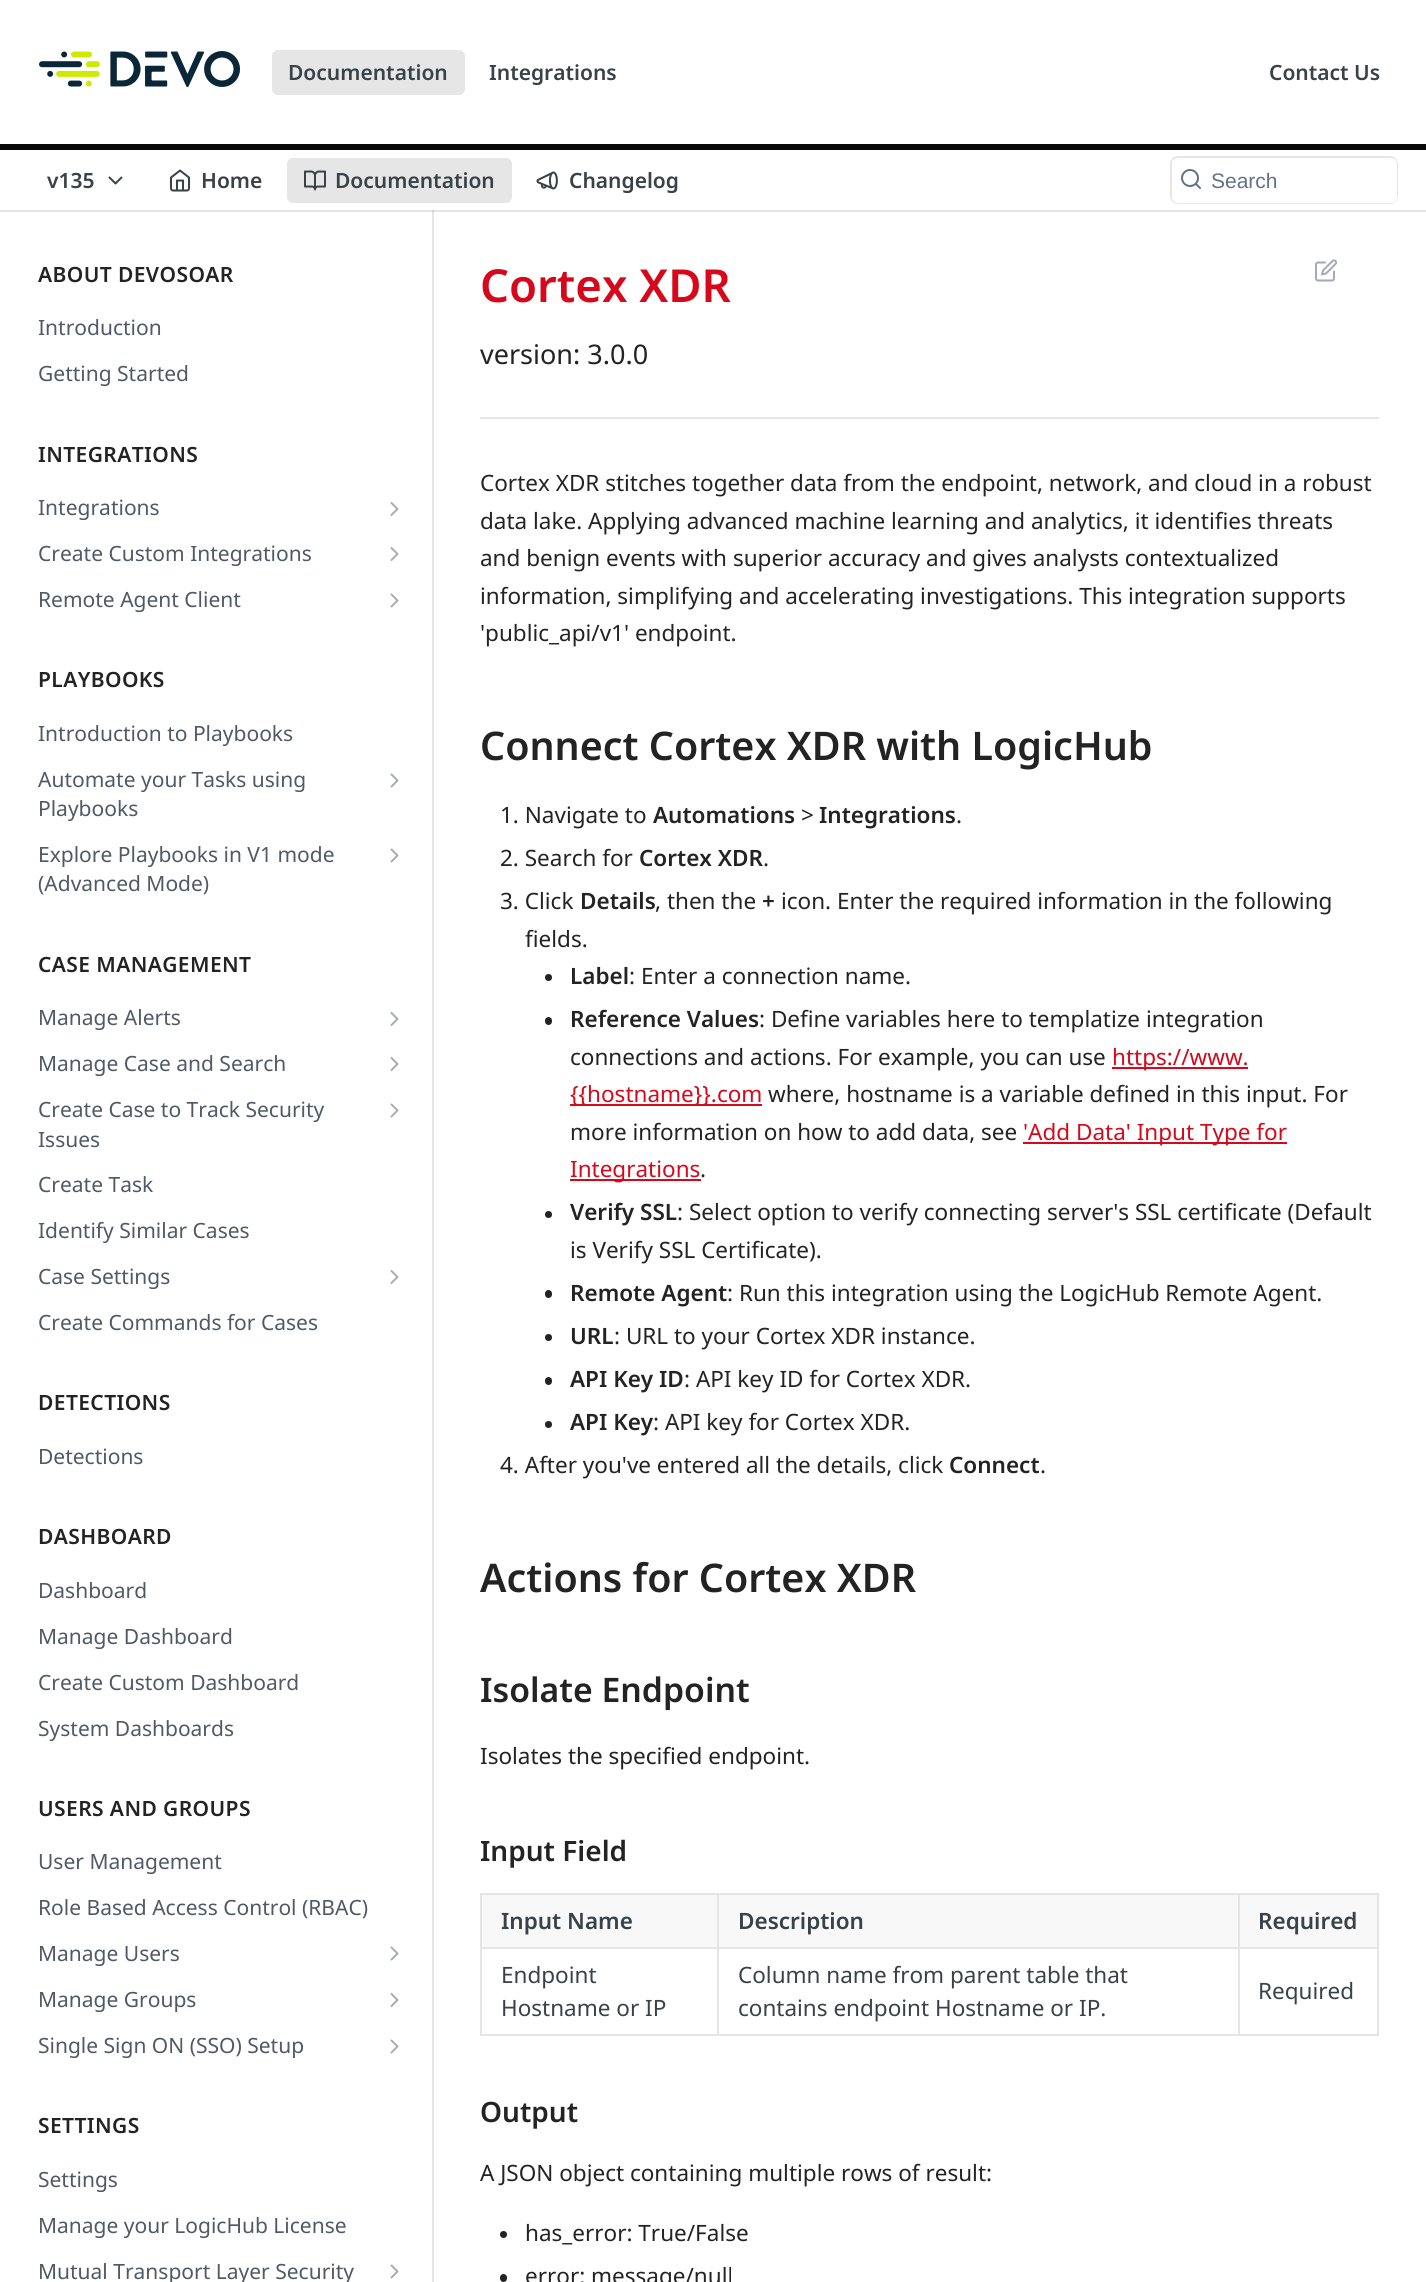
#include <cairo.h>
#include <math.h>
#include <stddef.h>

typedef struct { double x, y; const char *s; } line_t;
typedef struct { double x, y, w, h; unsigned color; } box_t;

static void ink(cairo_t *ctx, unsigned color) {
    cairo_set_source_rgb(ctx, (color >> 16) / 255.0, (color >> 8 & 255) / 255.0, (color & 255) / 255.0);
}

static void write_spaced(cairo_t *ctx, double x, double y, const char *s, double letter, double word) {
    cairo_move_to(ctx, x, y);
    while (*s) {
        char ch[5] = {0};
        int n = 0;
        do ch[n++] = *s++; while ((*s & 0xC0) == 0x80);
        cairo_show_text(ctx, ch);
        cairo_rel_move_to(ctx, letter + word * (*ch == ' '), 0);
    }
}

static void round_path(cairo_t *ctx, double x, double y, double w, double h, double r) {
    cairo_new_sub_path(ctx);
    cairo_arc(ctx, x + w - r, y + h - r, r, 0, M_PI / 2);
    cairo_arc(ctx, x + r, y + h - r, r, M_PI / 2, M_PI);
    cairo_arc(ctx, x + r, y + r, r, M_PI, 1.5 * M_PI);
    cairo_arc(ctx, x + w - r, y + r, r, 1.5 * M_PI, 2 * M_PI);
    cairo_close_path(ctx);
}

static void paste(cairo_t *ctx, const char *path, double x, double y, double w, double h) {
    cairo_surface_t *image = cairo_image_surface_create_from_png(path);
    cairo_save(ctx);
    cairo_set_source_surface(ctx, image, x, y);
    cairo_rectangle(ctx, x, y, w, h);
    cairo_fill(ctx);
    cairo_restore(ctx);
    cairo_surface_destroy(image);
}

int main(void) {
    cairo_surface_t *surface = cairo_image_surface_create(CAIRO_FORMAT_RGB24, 1426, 2282);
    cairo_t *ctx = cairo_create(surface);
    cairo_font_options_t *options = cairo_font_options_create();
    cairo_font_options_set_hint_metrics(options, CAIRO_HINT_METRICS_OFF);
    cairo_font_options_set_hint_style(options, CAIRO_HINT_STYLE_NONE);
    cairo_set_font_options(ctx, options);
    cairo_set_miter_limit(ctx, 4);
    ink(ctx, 0xFFFFFF);
    cairo_paint(ctx);
    ink(ctx, 0xE6E6E6);
    cairo_rectangle(ctx, 432, 210, 2, 2072);
    cairo_fill(ctx);
    cairo_set_source_rgba(ctx, 0, 0, 0, 0.1);
    cairo_new_path(ctx);
    cairo_move_to(ctx, 0, 210);
    cairo_line_to(ctx, 0, 212);
    cairo_line_to(ctx, 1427, 212);
    cairo_line_to(ctx, 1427, 2);
    cairo_line_to(ctx, 1426, 2);
    cairo_line_to(ctx, 1426, 210);
    cairo_close_path(ctx);
    cairo_fill(ctx);
    ink(ctx, 0x0B0808);
    cairo_rectangle(ctx, 0, 144, 1426, 6);
    cairo_fill(ctx);
    paste(ctx, "media/1.png", 39, 51, 201, 36);
    ink(ctx, 0xE6E6E6);
    round_path(ctx, 272, 50, 193, 45, 6);
    cairo_fill(ctx);
    cairo_select_font_face(ctx, "Noto Sans SemiBold", CAIRO_FONT_SLANT_NORMAL, CAIRO_FONT_WEIGHT_NORMAL);
    cairo_set_font_size(ctx, 21);
    ink(ctx, 0x384248);
    {
        static const line_t items[] = {
            {288, 80, "Documentation"},
            {489, 80, "Integrations"},
            {1269, 80, "Contact Us"},
            {47, 188, "v135"},
        };
        for (size_t i = 0; i < sizeof items / sizeof *items; i++) {
            cairo_move_to(ctx, items[i].x, items[i].y);
            cairo_show_text(ctx, items[i].s);
        }
    }
    paste(ctx, "media/2.png", 108, 176, 15, 9);
    paste(ctx, "media/3.png", 170, 169, 20, 23);
    cairo_move_to(ctx, 201, 188);
    cairo_show_text(ctx, "Home");
    ink(ctx, 0xE6E6E6);
    round_path(ctx, 287, 158, 225, 45, 6);
    cairo_fill(ctx);
    paste(ctx, "media/4.png", 304, 170, 22, 21);
    ink(ctx, 0x384248);
    cairo_move_to(ctx, 335, 188);
    cairo_show_text(ctx, "Documentation");
    paste(ctx, "media/5.png", 536, 171, 22, 19);
    cairo_move_to(ctx, 569, 188);
    cairo_show_text(ctx, "Changelog");
    round_path(ctx, 1171, 157, 226, 46, 7);
    ink(ctx, 0xE6E6E6);
    cairo_stroke(ctx);
    ink(ctx, 0xFFFFFF);
    round_path(ctx, 1172, 158, 225, 45, 6);
    cairo_fill(ctx);
    paste(ctx, "media/6.png", 1181, 169, 20, 20);
    cairo_select_font_face(ctx, "Liberation Sans", CAIRO_FONT_SLANT_NORMAL, CAIRO_FONT_WEIGHT_NORMAL);
    ink(ctx, 0x637288);
    cairo_move_to(ctx, 1211, 188);
    cairo_show_text(ctx, "Search");
    cairo_select_font_face(ctx, "Noto Sans SemiBold", CAIRO_FONT_SLANT_NORMAL, CAIRO_FONT_WEIGHT_NORMAL);
    ink(ctx, 0x232323);
    write_spaced(ctx, 38, 282, "ABOUT DEVOSOAR", 0.4, 0);
    cairo_select_font_face(ctx, "Noto Sans", CAIRO_FONT_SLANT_NORMAL, CAIRO_FONT_WEIGHT_NORMAL);
    ink(ctx, 0x4F5A66);
    cairo_move_to(ctx, 38, 335);
    cairo_show_text(ctx, "Introduction");
    cairo_move_to(ctx, 38, 381);
    cairo_show_text(ctx, "Getting Started");
    cairo_select_font_face(ctx, "Noto Sans SemiBold", CAIRO_FONT_SLANT_NORMAL, CAIRO_FONT_WEIGHT_NORMAL);
    ink(ctx, 0x232323);
    write_spaced(ctx, 38, 462, "INTEGRATIONS", 0.4, 0);
    cairo_select_font_face(ctx, "Noto Sans", CAIRO_FONT_SLANT_NORMAL, CAIRO_FONT_WEIGHT_NORMAL);
    ink(ctx, 0x4F5A66);
    cairo_move_to(ctx, 38, 515);
    cairo_show_text(ctx, "Integrations");
    paste(ctx, "media/7.png", 390, 502, 9, 14);
    cairo_move_to(ctx, 38, 561);
    cairo_show_text(ctx, "Create Custom Integrations");
    paste(ctx, "media/7.png", 390, 547, 9, 14);
    cairo_move_to(ctx, 38, 607);
    cairo_show_text(ctx, "Remote Agent Client");
    paste(ctx, "media/8.png", 390, 593, 9, 15);
    cairo_select_font_face(ctx, "Noto Sans SemiBold", CAIRO_FONT_SLANT_NORMAL, CAIRO_FONT_WEIGHT_NORMAL);
    ink(ctx, 0x232323);
    write_spaced(ctx, 38, 687, "PLAYBOOKS", 0.4, 0);
    cairo_select_font_face(ctx, "Noto Sans", CAIRO_FONT_SLANT_NORMAL, CAIRO_FONT_WEIGHT_NORMAL);
    ink(ctx, 0x4F5A66);
    {
        static const line_t items[] = {
            {38, 741, "Introduction to Playbooks"},
            {38, 787, "Automate your Tasks using"},
            {38, 816, "Playbooks"},
        };
        for (size_t i = 0; i < sizeof items / sizeof *items; i++) {
            cairo_move_to(ctx, items[i].x, items[i].y);
            cairo_show_text(ctx, items[i].s);
        }
    }
    paste(ctx, "media/8.png", 390, 773, 9, 15);
    cairo_move_to(ctx, 38, 862);
    cairo_show_text(ctx, "Explore Playbooks in V1 mode");
    cairo_move_to(ctx, 38, 891);
    cairo_show_text(ctx, "(Advanced Mode)");
    paste(ctx, "media/8.png", 390, 848, 9, 15);
    cairo_select_font_face(ctx, "Noto Sans SemiBold", CAIRO_FONT_SLANT_NORMAL, CAIRO_FONT_WEIGHT_NORMAL);
    ink(ctx, 0x232323);
    write_spaced(ctx, 38, 972, "CASE MANAGEMENT", 0.4, 0);
    cairo_select_font_face(ctx, "Noto Sans", CAIRO_FONT_SLANT_NORMAL, CAIRO_FONT_WEIGHT_NORMAL);
    ink(ctx, 0x4F5A66);
    cairo_move_to(ctx, 38, 1025);
    cairo_show_text(ctx, "Manage Alerts");
    paste(ctx, "media/7.png", 390, 1012, 9, 14);
    cairo_move_to(ctx, 38, 1071);
    cairo_show_text(ctx, "Manage Case and Search");
    paste(ctx, "media/7.png", 390, 1057, 9, 14);
    cairo_move_to(ctx, 38, 1117);
    cairo_show_text(ctx, "Create Case to Track Security");
    cairo_move_to(ctx, 38, 1147);
    cairo_show_text(ctx, "Issues");
    paste(ctx, "media/8.png", 390, 1103, 9, 15);
    {
        static const line_t items[] = {
            {38, 1192, "Create Task"},
            {38, 1238, "Identify Similar Cases"},
            {38, 1284, "Case Settings"},
        };
        for (size_t i = 0; i < sizeof items / sizeof *items; i++) {
            cairo_move_to(ctx, items[i].x, items[i].y);
            cairo_show_text(ctx, items[i].s);
        }
    }
    paste(ctx, "media/7.png", 390, 1270, 9, 14);
    cairo_move_to(ctx, 38, 1330);
    cairo_show_text(ctx, "Create Commands for Cases");
    cairo_select_font_face(ctx, "Noto Sans SemiBold", CAIRO_FONT_SLANT_NORMAL, CAIRO_FONT_WEIGHT_NORMAL);
    ink(ctx, 0x232323);
    write_spaced(ctx, 38, 1410, "DETECTIONS", 0.4, 0);
    cairo_select_font_face(ctx, "Noto Sans", CAIRO_FONT_SLANT_NORMAL, CAIRO_FONT_WEIGHT_NORMAL);
    ink(ctx, 0x4F5A66);
    cairo_move_to(ctx, 38, 1464);
    cairo_show_text(ctx, "Detections");
    cairo_select_font_face(ctx, "Noto Sans SemiBold", CAIRO_FONT_SLANT_NORMAL, CAIRO_FONT_WEIGHT_NORMAL);
    ink(ctx, 0x232323);
    write_spaced(ctx, 38, 1544, "DASHBOARD", 0.4, 0);
    cairo_select_font_face(ctx, "Noto Sans", CAIRO_FONT_SLANT_NORMAL, CAIRO_FONT_WEIGHT_NORMAL);
    ink(ctx, 0x4F5A66);
    {
        static const line_t items[] = {
            {38, 1598, "Dashboard"},
            {38, 1644, "Manage Dashboard"},
            {38, 1690, "Create Custom Dashboard"},
            {38, 1736, "System Dashboards"},
        };
        for (size_t i = 0; i < sizeof items / sizeof *items; i++) {
            cairo_move_to(ctx, items[i].x, items[i].y);
            cairo_show_text(ctx, items[i].s);
        }
    }
    cairo_select_font_face(ctx, "Noto Sans SemiBold", CAIRO_FONT_SLANT_NORMAL, CAIRO_FONT_WEIGHT_NORMAL);
    ink(ctx, 0x232323);
    write_spaced(ctx, 38, 1816, "USERS AND GROUPS", 0.4, 0);
    cairo_select_font_face(ctx, "Noto Sans", CAIRO_FONT_SLANT_NORMAL, CAIRO_FONT_WEIGHT_NORMAL);
    ink(ctx, 0x4F5A66);
    {
        static const line_t items[] = {
            {38, 1869, "User Management"},
            {38, 1915, "Role Based Access Control (RBAC)"},
            {38, 1961, "Manage Users"},
        };
        for (size_t i = 0; i < sizeof items / sizeof *items; i++) {
            cairo_move_to(ctx, items[i].x, items[i].y);
            cairo_show_text(ctx, items[i].s);
        }
    }
    paste(ctx, "media/8.png", 390, 1946, 9, 15);
    cairo_move_to(ctx, 38, 2007);
    cairo_show_text(ctx, "Manage Groups");
    paste(ctx, "media/7.png", 390, 1993, 9, 14);
    cairo_move_to(ctx, 38, 2053);
    cairo_show_text(ctx, "Single Sign ON (SSO) Setup");
    paste(ctx, "media/8.png", 390, 2039, 9, 15);
    cairo_select_font_face(ctx, "Noto Sans SemiBold", CAIRO_FONT_SLANT_NORMAL, CAIRO_FONT_WEIGHT_NORMAL);
    ink(ctx, 0x232323);
    write_spaced(ctx, 38, 2133, "SETTINGS", 0.4, 0);
    cairo_select_font_face(ctx, "Noto Sans", CAIRO_FONT_SLANT_NORMAL, CAIRO_FONT_WEIGHT_NORMAL);
    ink(ctx, 0x4F5A66);
    {
        static const line_t items[] = {
            {38, 2187, "Settings"},
            {38, 2233, "Manage your LogicHub License"},
            {38, 2279, "Mutual Transport Layer Security"},
        };
        for (size_t i = 0; i < sizeof items / sizeof *items; i++) {
            cairo_move_to(ctx, items[i].x, items[i].y);
            cairo_show_text(ctx, items[i].s);
        }
    }
    paste(ctx, "media/8.png", 390, 2264, 9, 15);
    ink(ctx, 0xE6E6E6);
    cairo_rectangle(ctx, 480, 417, 899, 2);
    cairo_fill(ctx);
    cairo_select_font_face(ctx, "Noto Sans SemiBold", CAIRO_FONT_SLANT_NORMAL, CAIRO_FONT_WEIGHT_NORMAL);
    cairo_set_font_size(ctx, 45.5);
    ink(ctx, 0xD5091B);
    cairo_move_to(ctx, 480, 302);
    cairo_show_text(ctx, "Cortex XDR");
    cairo_select_font_face(ctx, "Noto Sans", CAIRO_FONT_SLANT_NORMAL, CAIRO_FONT_WEIGHT_NORMAL);
    cairo_set_font_size(ctx, 27);
    ink(ctx, 0x232323);
    cairo_move_to(ctx, 480, 364);
    cairo_show_text(ctx, "version: 3.0.0");
    paste(ctx, "media/9.png", 1315, 259, 23, 23);
    cairo_set_font_size(ctx, 22.5);
    {
        static const line_t items[] = {
            {480, 491, "Cortex XDR stitches together data from the endpoint, network, and cloud in a robust"},
            {480, 529, "data lake. Applying advanced machine learning and analytics, it identifies threats"},
            {480, 566, "and benign events with superior accuracy and gives analysts contextualized"},
            {480, 604, "information, simplifying and accelerating investigations. This integration supports"},
            {480, 641, "'public_api/v1' endpoint."},
        };
        for (size_t i = 0; i < sizeof items / sizeof *items; i++) {
            cairo_move_to(ctx, items[i].x, items[i].y);
            cairo_show_text(ctx, items[i].s);
        }
    }
    cairo_select_font_face(ctx, "Noto Sans SemiBold", CAIRO_FONT_SLANT_NORMAL, CAIRO_FONT_WEIGHT_NORMAL);
    cairo_set_font_size(ctx, 39.4);
    cairo_move_to(ctx, 480, 760);
    cairo_show_text(ctx, "Connect Cortex XDR with LogicHub");
    cairo_select_font_face(ctx, "Noto Sans", CAIRO_FONT_SLANT_NORMAL, CAIRO_FONT_WEIGHT_NORMAL);
    cairo_set_font_size(ctx, 22.5);
    cairo_move_to(ctx, 500, 823);
    cairo_show_text(ctx, "1. Navigate to");
    cairo_select_font_face(ctx, "Noto Sans SemiBold", CAIRO_FONT_SLANT_NORMAL, CAIRO_FONT_WEIGHT_NORMAL);
    cairo_move_to(ctx, 653, 823);
    cairo_show_text(ctx, "Automations");
    cairo_select_font_face(ctx, "Noto Sans", CAIRO_FONT_SLANT_NORMAL, CAIRO_FONT_WEIGHT_NORMAL);
    cairo_move_to(ctx, 801, 823);
    cairo_show_text(ctx, ">");
    cairo_select_font_face(ctx, "Noto Sans SemiBold", CAIRO_FONT_SLANT_NORMAL, CAIRO_FONT_WEIGHT_NORMAL);
    cairo_move_to(ctx, 819, 823);
    cairo_show_text(ctx, "Integrations");
    cairo_select_font_face(ctx, "Noto Sans", CAIRO_FONT_SLANT_NORMAL, CAIRO_FONT_WEIGHT_NORMAL);
    cairo_move_to(ctx, 956, 823);
    cairo_show_text(ctx, ".");
    cairo_move_to(ctx, 500, 866);
    cairo_show_text(ctx, "2. Search for");
    cairo_select_font_face(ctx, "Noto Sans SemiBold", CAIRO_FONT_SLANT_NORMAL, CAIRO_FONT_WEIGHT_NORMAL);
    cairo_move_to(ctx, 639, 866);
    cairo_show_text(ctx, "Cortex XDR");
    cairo_select_font_face(ctx, "Noto Sans", CAIRO_FONT_SLANT_NORMAL, CAIRO_FONT_WEIGHT_NORMAL);
    cairo_move_to(ctx, 763, 866);
    cairo_show_text(ctx, ".");
    cairo_move_to(ctx, 500, 909);
    cairo_show_text(ctx, "3. Click");
    cairo_select_font_face(ctx, "Noto Sans SemiBold", CAIRO_FONT_SLANT_NORMAL, CAIRO_FONT_WEIGHT_NORMAL);
    cairo_move_to(ctx, 580, 909);
    cairo_show_text(ctx, "Details");
    cairo_select_font_face(ctx, "Noto Sans", CAIRO_FONT_SLANT_NORMAL, CAIRO_FONT_WEIGHT_NORMAL);
    cairo_move_to(ctx, 655, 909);
    cairo_show_text(ctx, ", then the");
    cairo_select_font_face(ctx, "Noto Sans SemiBold", CAIRO_FONT_SLANT_NORMAL, CAIRO_FONT_WEIGHT_NORMAL);
    cairo_move_to(ctx, 762, 909);
    cairo_show_text(ctx, "+");
    cairo_select_font_face(ctx, "Noto Sans", CAIRO_FONT_SLANT_NORMAL, CAIRO_FONT_WEIGHT_NORMAL);
    cairo_move_to(ctx, 781, 909);
    cairo_show_text(ctx, "icon. Enter the required information in the following");
    cairo_move_to(ctx, 525, 947);
    cairo_show_text(ctx, "fields.");
    cairo_new_path(ctx);
    cairo_arc(ctx, 548.5, 977.5, 3.5, 0, 2 * M_PI);
    cairo_fill(ctx);
    cairo_select_font_face(ctx, "Noto Sans SemiBold", CAIRO_FONT_SLANT_NORMAL, CAIRO_FONT_WEIGHT_NORMAL);
    cairo_move_to(ctx, 570, 984);
    cairo_show_text(ctx, "Label");
    cairo_select_font_face(ctx, "Noto Sans", CAIRO_FONT_SLANT_NORMAL, CAIRO_FONT_WEIGHT_NORMAL);
    cairo_move_to(ctx, 629, 984);
    cairo_show_text(ctx, ": Enter a connection name.");
    round_path(ctx, 545, 1017, 7, 8, 3.5);
    cairo_fill(ctx);
    cairo_select_font_face(ctx, "Noto Sans SemiBold", CAIRO_FONT_SLANT_NORMAL, CAIRO_FONT_WEIGHT_NORMAL);
    cairo_move_to(ctx, 570, 1027);
    cairo_show_text(ctx, "Reference Values");
    cairo_select_font_face(ctx, "Noto Sans", CAIRO_FONT_SLANT_NORMAL, CAIRO_FONT_WEIGHT_NORMAL);
    cairo_move_to(ctx, 759, 1027);
    cairo_show_text(ctx, ": Define variables here to templatize integration");
    cairo_move_to(ctx, 570, 1065);
    cairo_show_text(ctx, "connections and actions. For example, you can use");
    ink(ctx, 0xD5091B);
    cairo_rectangle(ctx, 1112, 1067, 136, 2);
    cairo_fill(ctx);
    cairo_move_to(ctx, 1112, 1065);
    cairo_show_text(ctx, "https://www.");
    cairo_rectangle(ctx, 570, 1104, 192, 2);
    cairo_fill(ctx);
    cairo_move_to(ctx, 570, 1102);
    cairo_show_text(ctx, "{{hostname}}.com");
    ink(ctx, 0x232323);
    cairo_move_to(ctx, 768, 1102);
    cairo_show_text(ctx, "where, hostname is a variable defined in this input. For");
    cairo_move_to(ctx, 570, 1140);
    cairo_show_text(ctx, "more information on how to add data, see");
    ink(ctx, 0xD5091B);
    cairo_rectangle(ctx, 1023, 1142, 264, 2);
    cairo_fill(ctx);
    cairo_move_to(ctx, 1023, 1140);
    cairo_show_text(ctx, "'Add Data' Input Type for");
    cairo_rectangle(ctx, 570, 1179, 131, 2);
    cairo_fill(ctx);
    cairo_move_to(ctx, 570, 1177);
    cairo_show_text(ctx, "Integrations");
    ink(ctx, 0x232323);
    cairo_move_to(ctx, 700, 1177);
    cairo_show_text(ctx, ".");
    cairo_new_path(ctx);
    cairo_arc(ctx, 548.5, 1214.5, 3.5, 0, 2 * M_PI);
    cairo_fill(ctx);
    cairo_select_font_face(ctx, "Noto Sans SemiBold", CAIRO_FONT_SLANT_NORMAL, CAIRO_FONT_WEIGHT_NORMAL);
    cairo_move_to(ctx, 570, 1220);
    cairo_show_text(ctx, "Verify SSL");
    cairo_select_font_face(ctx, "Noto Sans", CAIRO_FONT_SLANT_NORMAL, CAIRO_FONT_WEIGHT_NORMAL);
    cairo_move_to(ctx, 677, 1220);
    cairo_show_text(ctx, ": Select option to verify connecting server's SSL certificate (Default");
    cairo_move_to(ctx, 570, 1258);
    cairo_show_text(ctx, "is Verify SSL Certificate).");
    round_path(ctx, 545, 1290, 7, 8, 3.5);
    cairo_fill(ctx);
    cairo_select_font_face(ctx, "Noto Sans SemiBold", CAIRO_FONT_SLANT_NORMAL, CAIRO_FONT_WEIGHT_NORMAL);
    cairo_move_to(ctx, 570, 1301);
    cairo_show_text(ctx, "Remote Agent");
    cairo_select_font_face(ctx, "Noto Sans", CAIRO_FONT_SLANT_NORMAL, CAIRO_FONT_WEIGHT_NORMAL);
    cairo_move_to(ctx, 727, 1301);
    cairo_show_text(ctx, ": Run this integration using the LogicHub Remote Agent.");
    cairo_new_path(ctx);
    cairo_arc(ctx, 548.5, 1337.5, 3.5, 0, 2 * M_PI);
    cairo_fill(ctx);
    cairo_select_font_face(ctx, "Noto Sans SemiBold", CAIRO_FONT_SLANT_NORMAL, CAIRO_FONT_WEIGHT_NORMAL);
    cairo_move_to(ctx, 570, 1344);
    cairo_show_text(ctx, "URL");
    cairo_select_font_face(ctx, "Noto Sans", CAIRO_FONT_SLANT_NORMAL, CAIRO_FONT_WEIGHT_NORMAL);
    cairo_move_to(ctx, 614, 1344);
    cairo_show_text(ctx, ": URL to your Cortex XDR instance.");
    round_path(ctx, 545, 1377, 7, 8, 3.5);
    cairo_fill(ctx);
    cairo_select_font_face(ctx, "Noto Sans SemiBold", CAIRO_FONT_SLANT_NORMAL, CAIRO_FONT_WEIGHT_NORMAL);
    cairo_move_to(ctx, 570, 1387);
    cairo_show_text(ctx, "API Key ID");
    cairo_select_font_face(ctx, "Noto Sans", CAIRO_FONT_SLANT_NORMAL, CAIRO_FONT_WEIGHT_NORMAL);
    cairo_move_to(ctx, 684, 1387);
    cairo_show_text(ctx, ": API key ID for Cortex XDR.");
    cairo_new_path(ctx);
    cairo_arc(ctx, 548.5, 1424.5, 3.5, 0, 2 * M_PI);
    cairo_fill(ctx);
    cairo_select_font_face(ctx, "Noto Sans SemiBold", CAIRO_FONT_SLANT_NORMAL, CAIRO_FONT_WEIGHT_NORMAL);
    cairo_move_to(ctx, 570, 1430);
    cairo_show_text(ctx, "API Key");
    cairo_select_font_face(ctx, "Noto Sans", CAIRO_FONT_SLANT_NORMAL, CAIRO_FONT_WEIGHT_NORMAL);
    cairo_move_to(ctx, 653, 1430);
    cairo_show_text(ctx, ": API key for Cortex XDR.");
    cairo_move_to(ctx, 500, 1473);
    cairo_show_text(ctx, "4. After you've entered all the details, click");
    cairo_select_font_face(ctx, "Noto Sans SemiBold", CAIRO_FONT_SLANT_NORMAL, CAIRO_FONT_WEIGHT_NORMAL);
    cairo_move_to(ctx, 949, 1473);
    cairo_show_text(ctx, "Connect");
    cairo_select_font_face(ctx, "Noto Sans", CAIRO_FONT_SLANT_NORMAL, CAIRO_FONT_WEIGHT_NORMAL);
    cairo_move_to(ctx, 1040, 1473);
    cairo_show_text(ctx, ".");
    cairo_select_font_face(ctx, "Noto Sans SemiBold", CAIRO_FONT_SLANT_NORMAL, CAIRO_FONT_WEIGHT_NORMAL);
    cairo_set_font_size(ctx, 39.4);
    cairo_move_to(ctx, 480, 1592);
    cairo_show_text(ctx, "Actions for Cortex XDR");
    cairo_set_font_size(ctx, 33.75);
    cairo_move_to(ctx, 480, 1702);
    cairo_show_text(ctx, "Isolate Endpoint");
    cairo_select_font_face(ctx, "Noto Sans", CAIRO_FONT_SLANT_NORMAL, CAIRO_FONT_WEIGHT_NORMAL);
    cairo_set_font_size(ctx, 22.5);
    cairo_move_to(ctx, 480, 1764);
    cairo_show_text(ctx, "Isolates the specified endpoint.");
    cairo_select_font_face(ctx, "Noto Sans SemiBold", CAIRO_FONT_SLANT_NORMAL, CAIRO_FONT_WEIGHT_NORMAL);
    cairo_set_font_size(ctx, 28);
    cairo_move_to(ctx, 480, 1861);
    cairo_show_text(ctx, "Input Field");
    {
        static const box_t items[] = {
            {480, 1893, 899, 2, 0xE5E5E5},
            {1377, 1893, 2, 143, 0xE5E5E5},
            {480, 2034, 899, 2, 0xE5E5E5},
            {480, 1893, 2, 143, 0xE5E5E5},
            {482, 1895, 895, 52, 0xF8F8F8},
        };
        for (size_t i = 0; i < sizeof items / sizeof *items; i++) {
            ink(ctx, items[i].color);
            cairo_rectangle(ctx, items[i].x, items[i].y, items[i].w, items[i].h);
            cairo_fill(ctx);
        }
    }
    cairo_set_font_size(ctx, 22.5);
    ink(ctx, 0x384248);
    cairo_move_to(ctx, 501, 1929);
    cairo_show_text(ctx, "Input Name");
    {
        static const box_t items[] = {
            {1238, 1947, 141, 2, 0xE5E5E5},
            {1238, 1947, 2, 89, 0xE5E5E5},
            {717, 1947, 522, 2, 0xE5E5E5},
            {717, 1947, 2, 89, 0xE5E5E5},
            {480, 1947, 239, 2, 0xE5E5E5},
            {717, 1893, 2, 56, 0xE5E5E5},
        };
        for (size_t i = 0; i < sizeof items / sizeof *items; i++) {
            ink(ctx, items[i].color);
            cairo_rectangle(ctx, items[i].x, items[i].y, items[i].w, items[i].h);
            cairo_fill(ctx);
        }
    }
    ink(ctx, 0x384248);
    cairo_move_to(ctx, 738, 1929);
    cairo_show_text(ctx, "Description");
    ink(ctx, 0xE5E5E5);
    cairo_rectangle(ctx, 1238, 1893, 2, 56);
    cairo_fill(ctx);
    ink(ctx, 0x384248);
    cairo_move_to(ctx, 1258, 1929);
    cairo_show_text(ctx, "Required");
    cairo_select_font_face(ctx, "Noto Sans", CAIRO_FONT_SLANT_NORMAL, CAIRO_FONT_WEIGHT_NORMAL);
    {
        static const line_t items[] = {
            {501, 1983, "Endpoint"},
            {501, 2016, "Hostname or IP"},
            {738, 1983, "Column name from parent table that"},
            {738, 2016, "contains endpoint Hostname or IP."},
            {1258, 1999, "Required"},
        };
        for (size_t i = 0; i < sizeof items / sizeof *items; i++) {
            cairo_move_to(ctx, items[i].x, items[i].y);
            cairo_show_text(ctx, items[i].s);
        }
    }
    cairo_select_font_face(ctx, "Noto Sans SemiBold", CAIRO_FONT_SLANT_NORMAL, CAIRO_FONT_WEIGHT_NORMAL);
    cairo_set_font_size(ctx, 28);
    ink(ctx, 0x232323);
    cairo_move_to(ctx, 480, 2122);
    cairo_show_text(ctx, "Output");
    cairo_select_font_face(ctx, "Noto Sans", CAIRO_FONT_SLANT_NORMAL, CAIRO_FONT_WEIGHT_NORMAL);
    cairo_set_font_size(ctx, 22.5);
    cairo_move_to(ctx, 480, 2181);
    cairo_show_text(ctx, "A JSON object containing multiple rows of result:");
    cairo_new_path(ctx);
    cairo_arc(ctx, 503.5, 2234.5, 3.5, 0, 2 * M_PI);
    cairo_fill(ctx);
    cairo_move_to(ctx, 525, 2241);
    cairo_show_text(ctx, "has_error: True/False");
    round_path(ctx, 500, 2274, 7, 8, 3.5);
    cairo_fill(ctx);
    cairo_move_to(ctx, 525, 2284);
    cairo_show_text(ctx, "error: message/null");
    cairo_surface_write_to_png(surface, "image.png");
    cairo_font_options_destroy(options);
    cairo_destroy(ctx);
    cairo_surface_destroy(surface);
    return 0;
}
